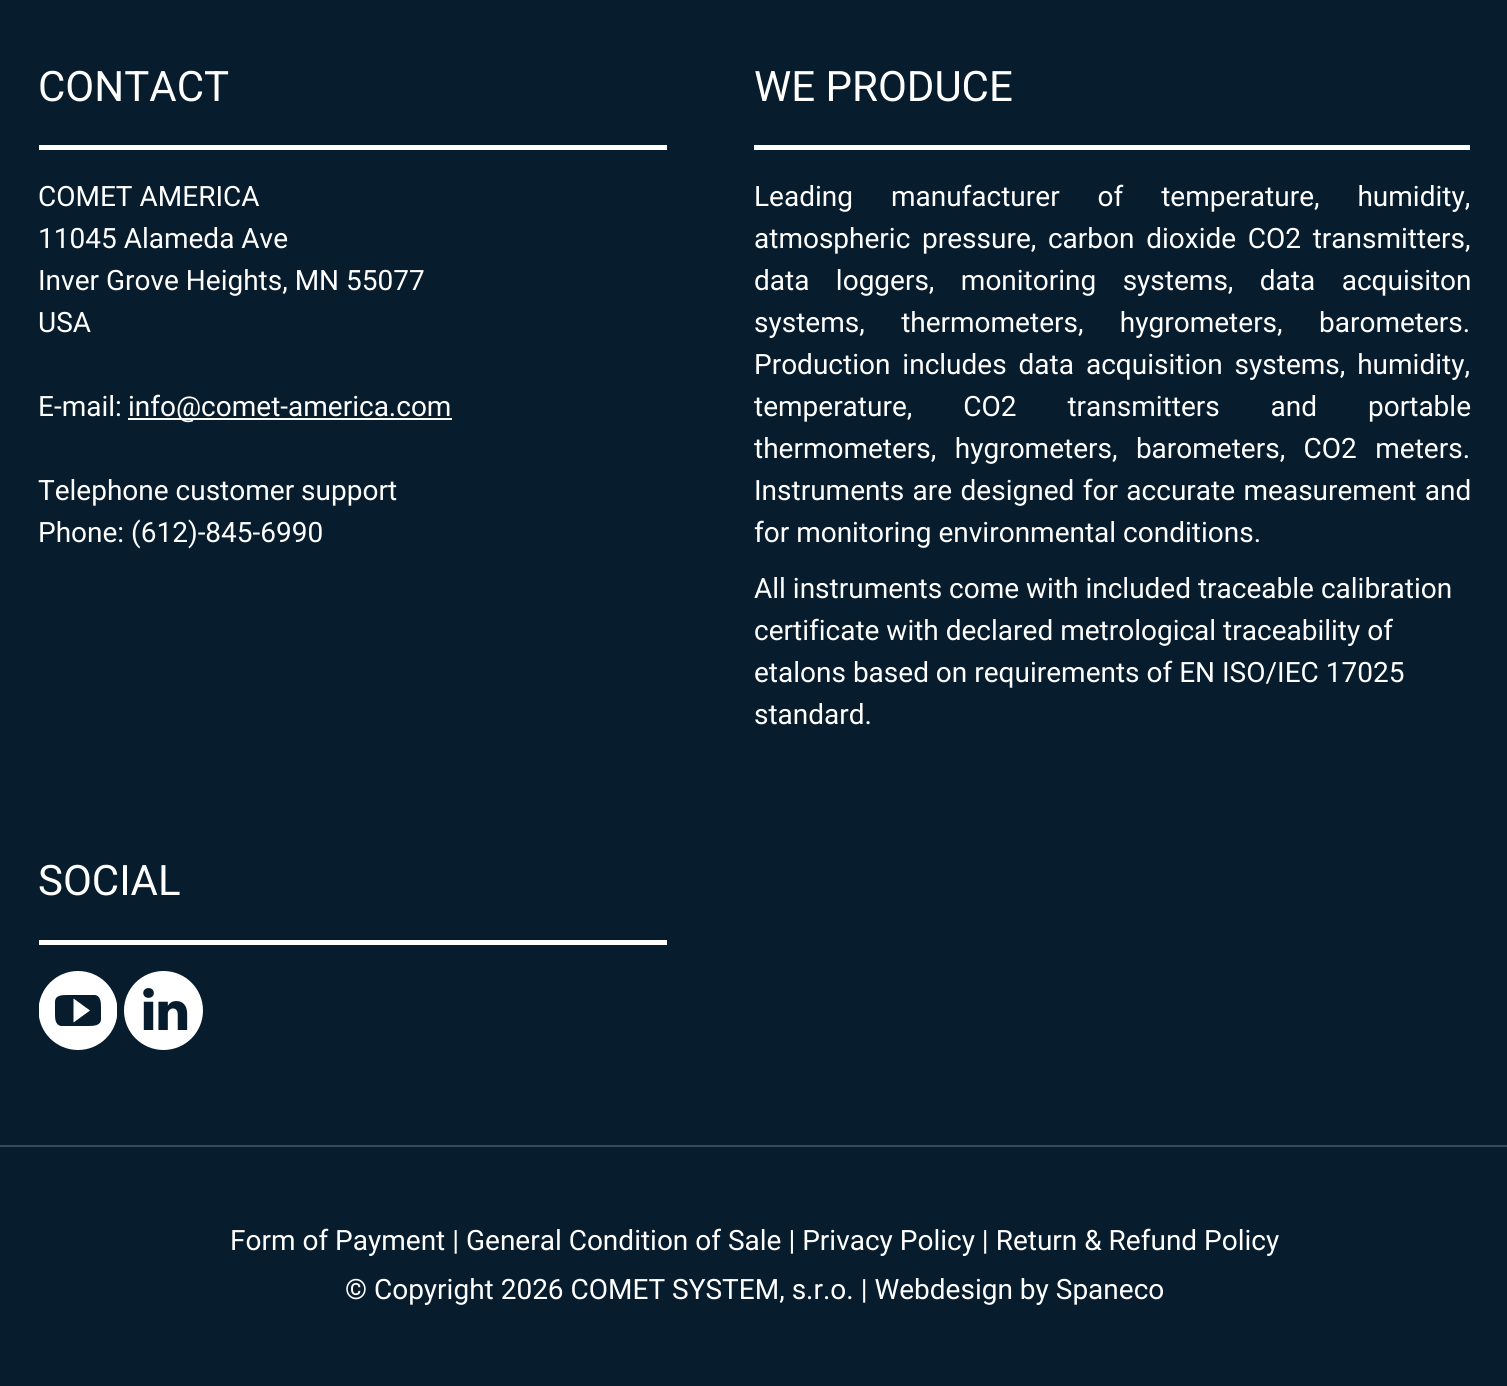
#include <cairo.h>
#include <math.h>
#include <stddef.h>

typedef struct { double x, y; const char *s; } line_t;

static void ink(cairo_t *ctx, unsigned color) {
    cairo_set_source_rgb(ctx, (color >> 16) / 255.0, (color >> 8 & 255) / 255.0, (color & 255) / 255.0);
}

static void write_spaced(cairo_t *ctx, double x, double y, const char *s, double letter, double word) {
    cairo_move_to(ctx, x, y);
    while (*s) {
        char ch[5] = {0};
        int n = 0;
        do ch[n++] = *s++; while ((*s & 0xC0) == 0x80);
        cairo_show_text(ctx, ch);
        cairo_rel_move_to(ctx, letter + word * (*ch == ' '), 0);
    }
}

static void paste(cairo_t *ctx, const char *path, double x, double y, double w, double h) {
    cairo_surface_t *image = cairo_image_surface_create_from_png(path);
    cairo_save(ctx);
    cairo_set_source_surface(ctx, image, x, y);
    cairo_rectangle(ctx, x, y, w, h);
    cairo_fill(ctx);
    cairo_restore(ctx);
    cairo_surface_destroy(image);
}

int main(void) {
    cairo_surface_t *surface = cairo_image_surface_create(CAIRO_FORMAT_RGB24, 1507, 1386);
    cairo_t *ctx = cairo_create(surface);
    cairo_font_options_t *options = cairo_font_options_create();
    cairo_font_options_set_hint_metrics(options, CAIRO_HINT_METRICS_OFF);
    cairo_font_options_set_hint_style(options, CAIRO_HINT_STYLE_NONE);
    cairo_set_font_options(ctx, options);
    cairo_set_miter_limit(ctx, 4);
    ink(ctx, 0x071C2D);
    cairo_paint(ctx);
    ink(ctx, 0xFFFFFF);
    cairo_rectangle(ctx, 39, 145, 628, 5);
    cairo_fill(ctx);
    cairo_select_font_face(ctx, "Roboto", CAIRO_FONT_SLANT_NORMAL, CAIRO_FONT_WEIGHT_NORMAL);
    cairo_set_font_size(ctx, 42);
    cairo_move_to(ctx, 38, 101);
    cairo_show_text(ctx, "CONTACT");
    cairo_set_font_size(ctx, 28);
    {
        static const line_t items[] = {
            {38, 206, "COMET AMERICA"},
            {38, 248, "11045 Alameda Ave"},
            {38, 290, "Inver Grove Heights, MN 55077"},
            {38, 332, "USA"},
            {38, 416, "E-mail:"},
        };
        for (size_t i = 0; i < sizeof items / sizeof *items; i++) {
            cairo_move_to(ctx, items[i].x, items[i].y);
            cairo_show_text(ctx, items[i].s);
        }
    }
    cairo_rectangle(ctx, 128, 418, 324, 2);
    cairo_fill(ctx);
    {
        static const line_t items[] = {
            {128, 416, "info@comet-america.com"},
            {38, 500, "Telephone customer support"},
            {38, 542, "Phone: (612)-845-6990"},
        };
        for (size_t i = 0; i < sizeof items / sizeof *items; i++) {
            cairo_move_to(ctx, items[i].x, items[i].y);
            cairo_show_text(ctx, items[i].s);
        }
    }
    cairo_rectangle(ctx, 754, 145, 716, 5);
    cairo_fill(ctx);
    cairo_set_font_size(ctx, 42);
    cairo_move_to(ctx, 754, 101);
    cairo_show_text(ctx, "WE PRODUCE");
    cairo_set_font_size(ctx, 28);
    write_spaced(ctx, 754, 206, "Leading manufacturer of temperature, humidity,", 0, 31);
    write_spaced(ctx, 754, 248, "atmospheric pressure, carbon dioxide CO2 transmitters,", 0, 4.75);
    write_spaced(ctx, 754, 290, "data loggers, monitoring systems, data acquisiton", 0, 19.5);
    write_spaced(ctx, 754, 332, "systems, thermometers, hygrometers, barometers.", 0, 29.5);
    write_spaced(ctx, 754, 374, "Production includes data acquisition systems, humidity,", 0, 5);
    write_spaced(ctx, 754, 416, "temperature, CO2 transmitters and portable", 0, 44);
    write_spaced(ctx, 754, 458, "thermometers, hygrometers, barometers, CO2 meters.", 0, 11.5);
    write_spaced(ctx, 754, 500, "Instruments are designed for accurate measurement and", 0, 1.5);
    {
        static const line_t items[] = {
            {754, 542, "for monitoring environmental conditions."},
            {754, 598, "All instruments come with included traceable calibration"},
            {754, 640, "certificate with declared metrological traceability of"},
            {754, 682, "etalons based on requirements of EN ISO/IEC 17025"},
            {754, 724, "standard."},
        };
        for (size_t i = 0; i < sizeof items / sizeof *items; i++) {
            cairo_move_to(ctx, items[i].x, items[i].y);
            cairo_show_text(ctx, items[i].s);
        }
    }
    cairo_rectangle(ctx, 39, 940, 628, 5);
    cairo_fill(ctx);
    cairo_set_font_size(ctx, 42);
    cairo_move_to(ctx, 38, 895);
    cairo_show_text(ctx, "SOCIAL");
    cairo_save(ctx);
    cairo_rectangle(ctx, 39, 971, 78, 79);
    cairo_clip(ctx);
    cairo_arc(ctx, 78, 1010.5, 39.5, 0, 2 * M_PI);
    cairo_fill(ctx);
    cairo_restore(ctx);
    paste(ctx, "media/1.png", 124, 971, 79, 79);
    ink(ctx, 0x071C2D);
    cairo_new_path(ctx);
    cairo_move_to(ctx, 101, 1019);
    cairo_curve_to(ctx, 101, 1026, 93, 1026, 88, 1026);
    cairo_line_to(ctx, 61, 1026);
    cairo_curve_to(ctx, 55, 1025, 55, 1018, 55, 1014);
    cairo_line_to(ctx, 55, 1002);
    cairo_curve_to(ctx, 55, 995, 62, 995, 68, 995);
    cairo_line_to(ctx, 95, 995);
    cairo_curve_to(ctx, 101, 996, 101, 1003, 101, 1008);
    cairo_close_path(ctx);
    cairo_fill(ctx);
    ink(ctx, 0xFFFFFF);
    cairo_new_path(ctx);
    cairo_move_to(ctx, 90, 1010.5);
    cairo_line_to(ctx, 73.5, 1022.5);
    cairo_line_to(ctx, 73.5, 998.5);
    cairo_close_path(ctx);
    cairo_fill(ctx);
    ink(ctx, 0x394957);
    cairo_rectangle(ctx, 0, 1145, 1507, 2);
    cairo_fill(ctx);
    cairo_set_font_size(ctx, 28);
    ink(ctx, 0xFFFFFF);
    cairo_move_to(ctx, 230, 1250);
    cairo_show_text(ctx, "Form of Payment | General Condition of Sale | Privacy Policy | Return & Refund Policy");
    cairo_move_to(ctx, 345, 1299);
    cairo_show_text(ctx, "© Copyright 2026 COMET SYSTEM, s.r.o. | Webdesign by Spaneco");
    cairo_surface_write_to_png(surface, "image.png");
    cairo_font_options_destroy(options);
    cairo_destroy(ctx);
    cairo_surface_destroy(surface);
    return 0;
}
